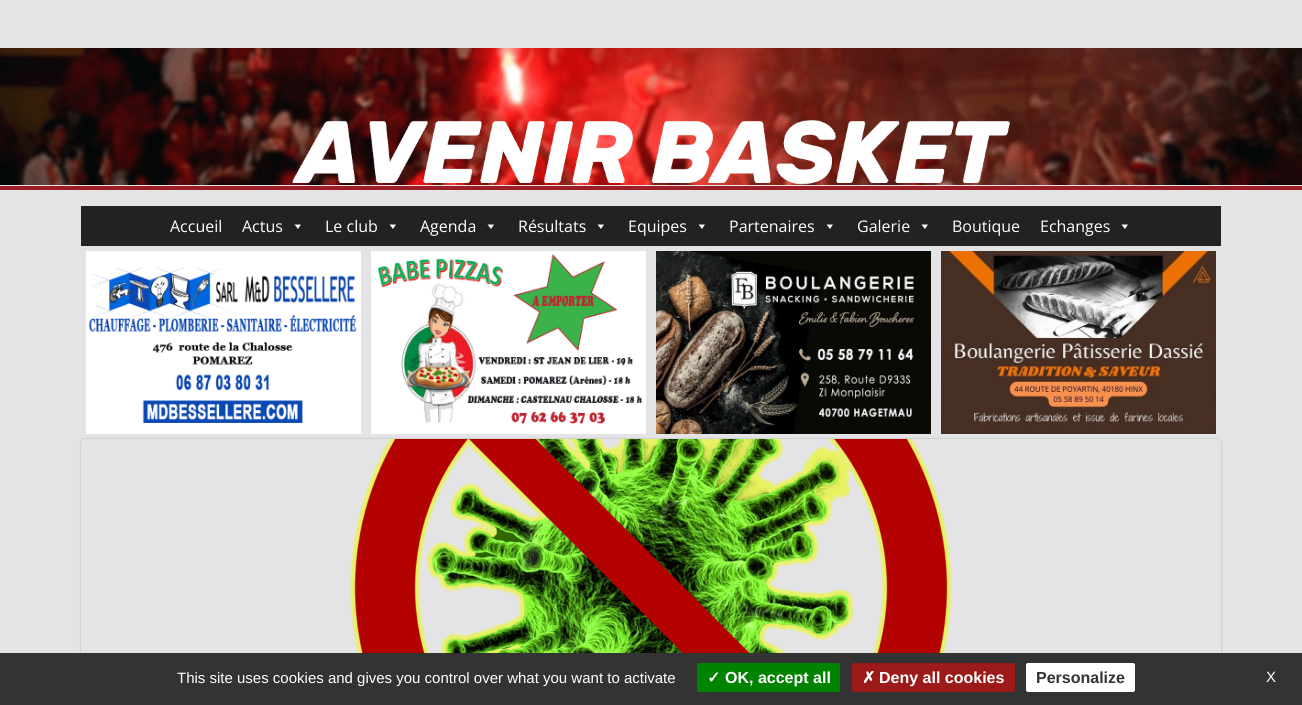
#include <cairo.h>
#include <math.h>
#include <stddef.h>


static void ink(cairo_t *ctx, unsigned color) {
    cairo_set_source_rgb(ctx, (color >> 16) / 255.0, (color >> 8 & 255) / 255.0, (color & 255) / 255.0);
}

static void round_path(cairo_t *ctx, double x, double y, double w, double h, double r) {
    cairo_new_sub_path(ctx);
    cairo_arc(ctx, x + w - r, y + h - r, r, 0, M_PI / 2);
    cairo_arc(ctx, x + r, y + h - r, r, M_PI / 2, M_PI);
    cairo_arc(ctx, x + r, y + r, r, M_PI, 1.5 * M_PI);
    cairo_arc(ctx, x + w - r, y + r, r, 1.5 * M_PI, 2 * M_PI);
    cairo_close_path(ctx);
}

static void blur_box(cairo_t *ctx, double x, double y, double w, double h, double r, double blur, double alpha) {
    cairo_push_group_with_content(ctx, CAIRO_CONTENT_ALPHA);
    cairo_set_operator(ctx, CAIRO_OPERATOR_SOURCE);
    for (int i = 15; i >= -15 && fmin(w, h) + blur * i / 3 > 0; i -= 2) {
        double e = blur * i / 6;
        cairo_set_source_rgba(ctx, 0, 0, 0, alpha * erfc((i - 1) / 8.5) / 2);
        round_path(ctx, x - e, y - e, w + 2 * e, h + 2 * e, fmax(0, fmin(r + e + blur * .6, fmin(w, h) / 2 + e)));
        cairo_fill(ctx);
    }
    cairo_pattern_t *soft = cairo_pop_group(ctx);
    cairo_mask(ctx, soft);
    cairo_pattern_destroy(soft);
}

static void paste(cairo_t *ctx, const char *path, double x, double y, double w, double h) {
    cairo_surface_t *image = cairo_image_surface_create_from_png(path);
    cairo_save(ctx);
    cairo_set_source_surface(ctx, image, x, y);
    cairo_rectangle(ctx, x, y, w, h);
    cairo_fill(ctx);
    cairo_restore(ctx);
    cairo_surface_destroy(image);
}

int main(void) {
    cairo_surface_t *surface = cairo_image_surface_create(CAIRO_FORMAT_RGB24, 1302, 705);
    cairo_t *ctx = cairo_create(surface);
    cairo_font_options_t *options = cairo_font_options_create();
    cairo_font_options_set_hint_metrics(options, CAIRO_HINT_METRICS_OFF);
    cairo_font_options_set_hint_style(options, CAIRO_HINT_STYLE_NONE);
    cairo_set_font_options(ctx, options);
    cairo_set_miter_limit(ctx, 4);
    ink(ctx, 0xE4E4E7);
    cairo_paint(ctx);
    paste(ctx, "media/1.png", 0, 48, 1302, 137);
    ink(ctx, 0x9D1E26);
    cairo_rectangle(ctx, 0, 186, 1302, 4);
    cairo_fill(ctx);
    ink(ctx, 0x222222);
    cairo_rectangle(ctx, 81, 206, 1140, 40);
    cairo_fill(ctx);
    cairo_select_font_face(ctx, "Open Sans", CAIRO_FONT_SLANT_NORMAL, CAIRO_FONT_WEIGHT_NORMAL);
    cairo_set_font_size(ctx, 16);
    ink(ctx, 0xFFFFFF);
    cairo_move_to(ctx, 170, 232);
    cairo_show_text(ctx, "Accueil");
    cairo_move_to(ctx, 242, 232);
    cairo_show_text(ctx, "Actus");
    cairo_new_path(ctx);
    cairo_move_to(ctx, 301, 224.5);
    cairo_line_to(ctx, 298, 229);
    cairo_line_to(ctx, 294.5, 224.5);
    cairo_close_path(ctx);
    cairo_fill(ctx);
    cairo_move_to(ctx, 325, 232);
    cairo_show_text(ctx, "Le club");
    cairo_new_path(ctx);
    cairo_move_to(ctx, 396, 224.5);
    cairo_line_to(ctx, 393, 229);
    cairo_line_to(ctx, 389.5, 224.5);
    cairo_close_path(ctx);
    cairo_fill(ctx);
    cairo_move_to(ctx, 420, 232);
    cairo_show_text(ctx, "Agenda");
    cairo_new_path(ctx);
    cairo_move_to(ctx, 494, 224.5);
    cairo_line_to(ctx, 491, 229);
    cairo_line_to(ctx, 487.5, 224.5);
    cairo_close_path(ctx);
    cairo_fill(ctx);
    cairo_move_to(ctx, 518, 232);
    cairo_show_text(ctx, "Résultats");
    cairo_new_path(ctx);
    cairo_move_to(ctx, 604, 224.5);
    cairo_line_to(ctx, 601, 229);
    cairo_line_to(ctx, 597.5, 224.5);
    cairo_close_path(ctx);
    cairo_fill(ctx);
    cairo_move_to(ctx, 628, 232);
    cairo_show_text(ctx, "Equipes");
    cairo_new_path(ctx);
    cairo_move_to(ctx, 705, 224.5);
    cairo_line_to(ctx, 702, 229);
    cairo_line_to(ctx, 698.5, 224.5);
    cairo_close_path(ctx);
    cairo_fill(ctx);
    cairo_move_to(ctx, 729, 232);
    cairo_show_text(ctx, "Partenaires");
    cairo_new_path(ctx);
    cairo_move_to(ctx, 833, 224.5);
    cairo_line_to(ctx, 830, 229);
    cairo_line_to(ctx, 826.5, 224.5);
    cairo_close_path(ctx);
    cairo_fill(ctx);
    cairo_move_to(ctx, 857, 232);
    cairo_show_text(ctx, "Galerie");
    cairo_new_path(ctx);
    cairo_move_to(ctx, 928, 224.5);
    cairo_line_to(ctx, 925, 229);
    cairo_line_to(ctx, 921.5, 224.5);
    cairo_close_path(ctx);
    cairo_fill(ctx);
    cairo_move_to(ctx, 952, 232);
    cairo_show_text(ctx, "Boutique");
    cairo_move_to(ctx, 1040, 232);
    cairo_show_text(ctx, "Echanges");
    cairo_new_path(ctx);
    cairo_move_to(ctx, 1128, 224.5);
    cairo_line_to(ctx, 1125, 229);
    cairo_line_to(ctx, 1121.5, 224.5);
    cairo_close_path(ctx);
    cairo_fill(ctx);
    paste(ctx, "media/2.png", 86, 251, 275, 183);
    paste(ctx, "media/3.png", 371, 251, 275, 183);
    paste(ctx, "media/4.png", 656, 251, 275, 183);
    paste(ctx, "media/5.png", 941, 251, 275, 183);
    cairo_save(ctx);
    cairo_set_fill_rule(ctx, CAIRO_FILL_RULE_EVEN_ODD);
    cairo_new_path(ctx);
    cairo_move_to(ctx, 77, 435);
    cairo_line_to(ctx, 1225, 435);
    cairo_line_to(ctx, 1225, 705);
    cairo_line_to(ctx, 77, 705);
    cairo_close_path(ctx);
    cairo_move_to(ctx, 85, 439);
    cairo_line_to(ctx, 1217, 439);
    cairo_curve_to(ctx, 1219, 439, 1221, 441, 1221, 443);
    cairo_line_to(ctx, 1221, 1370);
    cairo_curve_to(ctx, 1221, 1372, 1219, 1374, 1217, 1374);
    cairo_line_to(ctx, 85, 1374);
    cairo_curve_to(ctx, 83, 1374, 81, 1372, 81, 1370);
    cairo_line_to(ctx, 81, 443);
    cairo_curve_to(ctx, 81, 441, 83, 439, 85, 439);
    cairo_close_path(ctx);
    cairo_clip(ctx);
    ink(ctx, 0x000000);
    blur_box(ctx, 81, 439, 1140, 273, 4, 1, 0.24);
    cairo_restore(ctx);
    paste(ctx, "media/6.png", 349, 439, 604, 214);
    ink(ctx, 0x333333);
    cairo_rectangle(ctx, 0, 653, 1302, 52);
    cairo_fill(ctx);
    cairo_select_font_face(ctx, "Liberation Sans", CAIRO_FONT_SLANT_NORMAL, CAIRO_FONT_WEIGHT_NORMAL);
    cairo_set_font_size(ctx, 15);
    ink(ctx, 0xFFFFFF);
    cairo_move_to(ctx, 177, 683);
    cairo_show_text(ctx, "This site uses cookies and gives you control over what you want to activate");
    ink(ctx, 0x008300);
    round_path(ctx, 697, 663, 143, 29, 2);
    cairo_fill(ctx);
    cairo_select_font_face(ctx, "DejaVu Sans", CAIRO_FONT_SLANT_NORMAL, CAIRO_FONT_WEIGHT_BOLD);
    cairo_set_font_size(ctx, 16);
    ink(ctx, 0xFFFFFF);
    cairo_move_to(ctx, 707, 683);
    cairo_show_text(ctx, "✓");
    cairo_select_font_face(ctx, "Liberation Sans", CAIRO_FONT_SLANT_NORMAL, CAIRO_FONT_WEIGHT_BOLD);
    cairo_move_to(ctx, 725, 683);
    cairo_show_text(ctx, "OK, accept all");
    ink(ctx, 0x9C1A1A);
    round_path(ctx, 852, 663, 163, 29, 2);
    cairo_fill(ctx);
    cairo_select_font_face(ctx, "DejaVu Sans", CAIRO_FONT_SLANT_NORMAL, CAIRO_FONT_WEIGHT_BOLD);
    ink(ctx, 0xFFFFFF);
    cairo_move_to(ctx, 862, 683);
    cairo_show_text(ctx, "✗");
    cairo_select_font_face(ctx, "Liberation Sans", CAIRO_FONT_SLANT_NORMAL, CAIRO_FONT_WEIGHT_BOLD);
    cairo_move_to(ctx, 879, 683);
    cairo_show_text(ctx, "Deny all cookies");
    round_path(ctx, 1026, 663, 109, 29, 2);
    cairo_fill(ctx);
    ink(ctx, 0x333333);
    cairo_move_to(ctx, 1036, 683);
    cairo_show_text(ctx, "Personalize");
    cairo_select_font_face(ctx, "Liberation Sans", CAIRO_FONT_SLANT_NORMAL, CAIRO_FONT_WEIGHT_NORMAL);
    cairo_set_font_size(ctx, 15);
    ink(ctx, 0xFFFFFF);
    cairo_move_to(ctx, 1266, 682);
    cairo_show_text(ctx, "X");
    cairo_surface_write_to_png(surface, "image.png");
    cairo_font_options_destroy(options);
    cairo_destroy(ctx);
    cairo_surface_destroy(surface);
    return 0;
}
